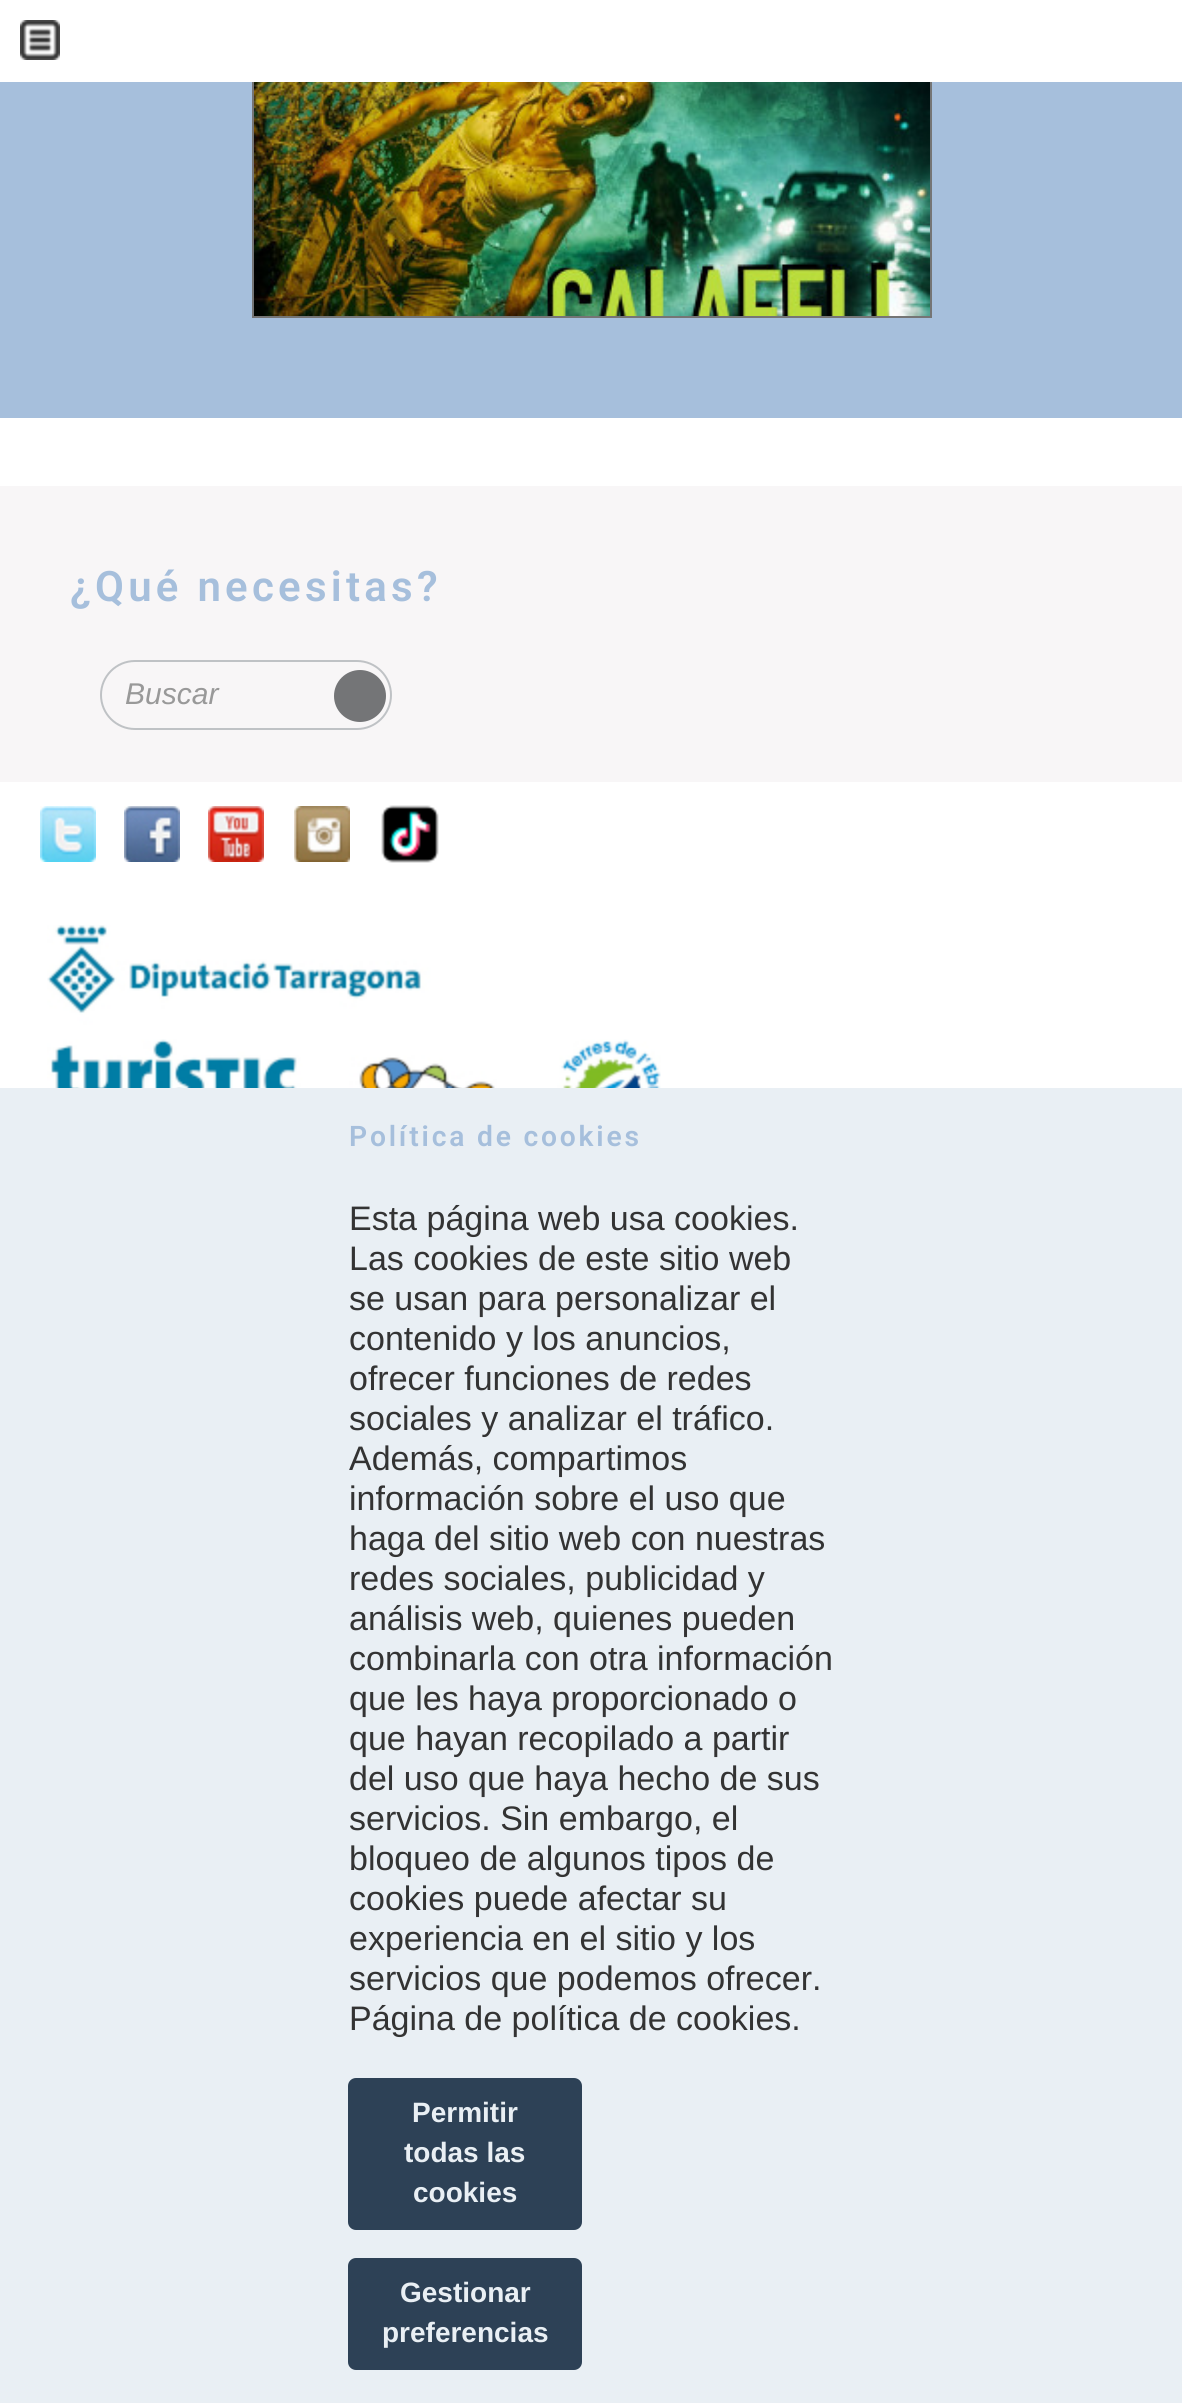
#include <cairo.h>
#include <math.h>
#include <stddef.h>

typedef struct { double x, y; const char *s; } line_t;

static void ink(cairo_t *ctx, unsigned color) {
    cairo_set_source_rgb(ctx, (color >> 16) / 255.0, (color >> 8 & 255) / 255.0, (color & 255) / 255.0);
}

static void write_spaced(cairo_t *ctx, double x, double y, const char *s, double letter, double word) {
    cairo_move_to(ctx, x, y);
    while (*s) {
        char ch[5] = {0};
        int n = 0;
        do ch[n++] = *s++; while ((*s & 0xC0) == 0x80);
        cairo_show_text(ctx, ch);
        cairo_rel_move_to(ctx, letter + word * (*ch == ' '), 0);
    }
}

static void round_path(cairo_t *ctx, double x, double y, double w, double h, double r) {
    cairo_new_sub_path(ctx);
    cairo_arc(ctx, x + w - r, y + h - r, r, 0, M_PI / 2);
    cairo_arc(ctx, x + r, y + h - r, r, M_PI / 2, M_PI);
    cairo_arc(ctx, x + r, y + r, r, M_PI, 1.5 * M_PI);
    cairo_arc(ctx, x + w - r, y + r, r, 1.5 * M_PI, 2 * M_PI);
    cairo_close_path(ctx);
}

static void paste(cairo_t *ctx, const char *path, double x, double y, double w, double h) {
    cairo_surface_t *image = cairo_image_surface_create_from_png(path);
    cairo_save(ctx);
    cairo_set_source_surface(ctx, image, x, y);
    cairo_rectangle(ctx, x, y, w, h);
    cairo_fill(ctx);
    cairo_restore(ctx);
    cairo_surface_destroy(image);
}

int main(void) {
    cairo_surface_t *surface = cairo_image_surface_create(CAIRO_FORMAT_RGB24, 1182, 2403);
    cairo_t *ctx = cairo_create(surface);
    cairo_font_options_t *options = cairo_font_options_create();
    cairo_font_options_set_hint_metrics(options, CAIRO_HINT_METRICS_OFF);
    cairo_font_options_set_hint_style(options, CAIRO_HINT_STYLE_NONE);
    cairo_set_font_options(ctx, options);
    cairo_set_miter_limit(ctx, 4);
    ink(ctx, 0xFFFFFF);
    cairo_paint(ctx);
    ink(ctx, 0xA6BFDC);
    cairo_rectangle(ctx, 0, 82, 1182, 336);
    cairo_fill(ctx);
    cairo_rectangle(ctx, 253, -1, 678, 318);
    ink(ctx, 0x757575);
    cairo_stroke(ctx);
    paste(ctx, "media/1.png", 254, 82, 676, 234);
    paste(ctx, "media/2.png", 20, 20, 40, 40);
    ink(ctx, 0xFFFFFF);
    cairo_rectangle(ctx, 252, 0, 680, 82);
    cairo_fill(ctx);
    ink(ctx, 0xF8F6F7);
    cairo_rectangle(ctx, 0, 486, 1182, 296);
    cairo_fill(ctx);
    cairo_select_font_face(ctx, "Roboto SemiBold", CAIRO_FONT_SLANT_NORMAL, CAIRO_FONT_WEIGHT_NORMAL);
    cairo_set_font_size(ctx, 42);
    ink(ctx, 0xA6BFDC);
    write_spaced(ctx, 70, 601, "¿Qué necesitas?", 4.25, 0);
    round_path(ctx, 101, 661, 290, 68, 34);
    ink(ctx, 0xBFC2C5);
    cairo_stroke(ctx);
    cairo_select_font_face(ctx, "Liberation Sans", CAIRO_FONT_SLANT_ITALIC, CAIRO_FONT_WEIGHT_NORMAL);
    cairo_set_font_size(ctx, 30);
    ink(ctx, 0x999999);
    cairo_move_to(ctx, 125, 704);
    cairo_show_text(ctx, "Buscar");
    ink(ctx, 0x747577);
    cairo_new_path(ctx);
    cairo_arc(ctx, 360, 696, 26, 0, 2 * M_PI);
    cairo_fill(ctx);
    paste(ctx, "media/3.png", 40, 806, 56, 56);
    paste(ctx, "media/4.png", 124, 806, 56, 56);
    paste(ctx, "media/5.png", 208, 806, 56, 56);
    paste(ctx, "media/6.png", 294, 806, 56, 56);
    paste(ctx, "media/7.png", 381, 805, 58, 58);
    paste(ctx, "media/8.png", 47, 925, 614, 163);
    ink(ctx, 0xE9EFF4);
    cairo_rectangle(ctx, 0, 1088, 1182, 1315);
    cairo_fill(ctx);
    cairo_select_font_face(ctx, "Roboto SemiBold", CAIRO_FONT_SLANT_NORMAL, CAIRO_FONT_WEIGHT_NORMAL);
    cairo_set_font_size(ctx, 28.25);
    ink(ctx, 0xA6BFDC);
    write_spaced(ctx, 349, 1146, "Política de cookies", 2.8, 0);
    cairo_select_font_face(ctx, "Liberation Sans", CAIRO_FONT_SLANT_NORMAL, CAIRO_FONT_WEIGHT_NORMAL);
    cairo_set_font_size(ctx, 34);
    ink(ctx, 0x333333);
    {
        static const line_t items[] = {
            {349, 1230, "Esta página web usa cookies."},
            {349, 1270, "Las cookies de este sitio web"},
            {349, 1310, "se usan para personalizar el"},
            {349, 1350, "contenido y los anuncios,"},
            {349, 1390, "ofrecer funciones de redes"},
            {349, 1430, "sociales y analizar el tráfico."},
            {349, 1470, "Además, compartimos"},
            {349, 1510, "información sobre el uso que"},
            {349, 1550, "haga del sitio web con nuestras"},
            {349, 1590, "redes sociales, publicidad y"},
            {349, 1630, "análisis web, quienes pueden"},
            {349, 1670, "combinarla con otra información"},
            {349, 1710, "que les haya proporcionado o"},
            {349, 1750, "que hayan recopilado a partir"},
            {349, 1790, "del uso que haya hecho de sus"},
            {349, 1830, "servicios. Sin embargo, el"},
            {349, 1870, "bloqueo de algunos tipos de"},
            {349, 1910, "cookies puede afectar su"},
            {349, 1950, "experiencia en el sitio y los"},
            {349, 1990, "servicios que podemos ofrecer."},
            {349, 2030, "Página de política de cookies."},
        };
        for (size_t i = 0; i < sizeof items / sizeof *items; i++) {
            cairo_move_to(ctx, items[i].x, items[i].y);
            cairo_show_text(ctx, items[i].s);
        }
    }
    ink(ctx, 0x2D4156);
    round_path(ctx, 348, 2078, 234, 152, 8);
    cairo_fill(ctx);
    cairo_select_font_face(ctx, "Liberation Sans", CAIRO_FONT_SLANT_NORMAL, CAIRO_FONT_WEIGHT_BOLD);
    cairo_set_font_size(ctx, 28);
    ink(ctx, 0xE9EFF4);
    {
        static const line_t items[] = {
            {412, 2122, "Permitir"},
            {404, 2162, "todas las"},
            {413, 2202, "cookies"},
        };
        for (size_t i = 0; i < sizeof items / sizeof *items; i++) {
            cairo_move_to(ctx, items[i].x, items[i].y);
            cairo_show_text(ctx, items[i].s);
        }
    }
    ink(ctx, 0x2D4156);
    round_path(ctx, 348, 2258, 234, 112, 8);
    cairo_fill(ctx);
    ink(ctx, 0xE9EFF4);
    cairo_move_to(ctx, 400, 2302);
    cairo_show_text(ctx, "Gestionar");
    cairo_move_to(ctx, 382, 2342);
    cairo_show_text(ctx, "preferencias");
    cairo_surface_write_to_png(surface, "image.png");
    cairo_font_options_destroy(options);
    cairo_destroy(ctx);
    cairo_surface_destroy(surface);
    return 0;
}
